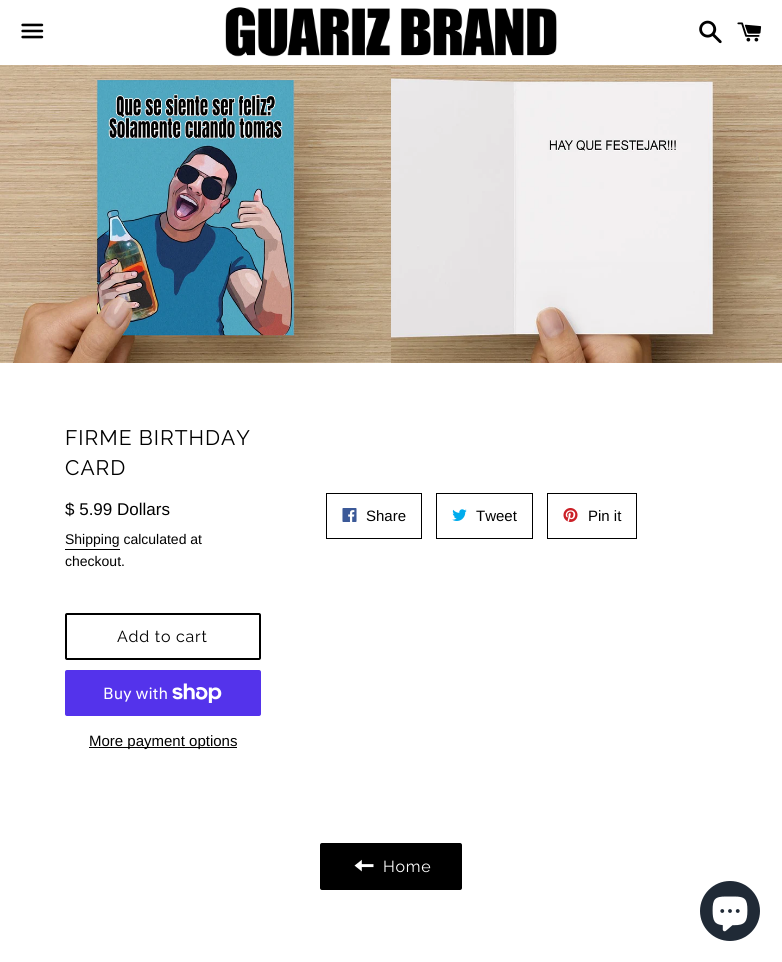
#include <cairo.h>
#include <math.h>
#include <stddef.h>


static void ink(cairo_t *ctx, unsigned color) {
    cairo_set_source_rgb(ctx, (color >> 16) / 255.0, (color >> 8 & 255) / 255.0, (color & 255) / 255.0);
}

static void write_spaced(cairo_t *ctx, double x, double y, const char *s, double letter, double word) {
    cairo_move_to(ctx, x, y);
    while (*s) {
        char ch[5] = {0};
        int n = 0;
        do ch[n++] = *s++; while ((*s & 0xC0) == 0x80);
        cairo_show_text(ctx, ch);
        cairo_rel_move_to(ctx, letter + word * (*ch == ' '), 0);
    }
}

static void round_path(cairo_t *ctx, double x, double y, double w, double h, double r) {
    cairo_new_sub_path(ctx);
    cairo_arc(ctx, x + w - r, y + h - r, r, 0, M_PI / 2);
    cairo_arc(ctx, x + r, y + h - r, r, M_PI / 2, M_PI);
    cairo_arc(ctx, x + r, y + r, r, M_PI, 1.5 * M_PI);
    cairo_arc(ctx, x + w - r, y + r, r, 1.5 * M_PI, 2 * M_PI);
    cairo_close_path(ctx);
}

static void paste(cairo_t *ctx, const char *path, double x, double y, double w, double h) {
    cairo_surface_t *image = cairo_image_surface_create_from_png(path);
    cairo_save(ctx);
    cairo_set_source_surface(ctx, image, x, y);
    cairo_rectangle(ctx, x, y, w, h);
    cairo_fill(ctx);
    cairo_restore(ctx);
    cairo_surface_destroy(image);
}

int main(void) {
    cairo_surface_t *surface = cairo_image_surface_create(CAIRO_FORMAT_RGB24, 782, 962);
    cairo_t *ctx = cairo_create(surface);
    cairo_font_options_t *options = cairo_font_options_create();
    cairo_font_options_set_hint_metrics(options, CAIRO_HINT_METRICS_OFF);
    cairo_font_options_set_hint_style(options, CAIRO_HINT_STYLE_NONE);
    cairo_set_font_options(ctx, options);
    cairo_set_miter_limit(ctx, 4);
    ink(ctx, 0xFFFFFF);
    cairo_paint(ctx);
    paste(ctx, "media/1.png", 21, 23, 23, 16);
    paste(ctx, "media/2.png", 225, 7, 332, 50);
    paste(ctx, "media/3.png", 699, 20, 23, 24);
    paste(ctx, "media/4.png", 737, 22, 25, 20);
    paste(ctx, "media/5.png", 0, 65, 391, 298);
    paste(ctx, "media/6.png", 391, 65, 391, 298);
    cairo_select_font_face(ctx, "Raleway", CAIRO_FONT_SLANT_NORMAL, CAIRO_FONT_WEIGHT_NORMAL);
    cairo_set_font_size(ctx, 21);
    ink(ctx, 0x000000);
    write_spaced(ctx, 65, 445, "FIRME BIRTHDAY", 1, 0);
    write_spaced(ctx, 65, 475, "CARD", 1, 0);
    cairo_select_font_face(ctx, "Liberation Sans", CAIRO_FONT_SLANT_NORMAL, CAIRO_FONT_WEIGHT_NORMAL);
    cairo_set_font_size(ctx, 17);
    cairo_move_to(ctx, 65, 515);
    cairo_show_text(ctx, "$ 5.99 Dollars");
    cairo_set_font_size(ctx, 14);
    cairo_move_to(ctx, 65, 544);
    cairo_show_text(ctx, "Shipping calculated at");
    cairo_rectangle(ctx, 65, 549, 55, 1);
    cairo_fill(ctx);
    cairo_move_to(ctx, 65, 566);
    cairo_show_text(ctx, "checkout.");
    round_path(ctx, 66, 614, 194, 45, 1);
    cairo_stroke(ctx);
    cairo_select_font_face(ctx, "Raleway", CAIRO_FONT_SLANT_NORMAL, CAIRO_FONT_WEIGHT_NORMAL);
    cairo_set_font_size(ctx, 16);
    write_spaced(ctx, 117, 642, "Add to cart", 0.75, 0);
    ink(ctx, 0x5433EB);
    round_path(ctx, 65, 670, 196, 46, 2);
    cairo_fill(ctx);
    cairo_select_font_face(ctx, "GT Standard", CAIRO_FONT_SLANT_NORMAL, CAIRO_FONT_WEIGHT_NORMAL);
    ink(ctx, 0xFFFFFF);
    cairo_move_to(ctx, 103, 699);
    cairo_show_text(ctx, "Buy with");
    paste(ctx, "media/7.png", 172, 683, 50, 20);
    ink(ctx, 0x000000);
    cairo_rectangle(ctx, 89, 747, 148, 1);
    cairo_fill(ctx);
    cairo_select_font_face(ctx, "Liberation Sans", CAIRO_FONT_SLANT_NORMAL, CAIRO_FONT_WEIGHT_NORMAL);
    cairo_set_font_size(ctx, 15);
    cairo_move_to(ctx, 89, 746);
    cairo_show_text(ctx, "More payment options");
    cairo_rectangle(ctx, 326.5, 493.5, 95, 45);
    cairo_set_line_width(ctx, 1);
    cairo_stroke(ctx);
    paste(ctx, "media/8.png", 342, 508, 15, 14);
    cairo_move_to(ctx, 366, 521);
    cairo_show_text(ctx, "Share");
    cairo_rectangle(ctx, 436.5, 493.5, 96, 45);
    cairo_stroke(ctx);
    paste(ctx, "media/9.png", 452, 509, 15, 12);
    cairo_move_to(ctx, 476, 521);
    cairo_show_text(ctx, "Tweet");
    cairo_rectangle(ctx, 547.5, 493.5, 89, 45);
    cairo_stroke(ctx);
    paste(ctx, "media/10.png", 563, 508, 15, 14);
    cairo_move_to(ctx, 588, 521);
    cairo_show_text(ctx, "Pin it");
    round_path(ctx, 320, 843, 142, 47, 2);
    cairo_fill(ctx);
    paste(ctx, "media/11.png", 354, 859, 20, 13);
    cairo_select_font_face(ctx, "Raleway", CAIRO_FONT_SLANT_NORMAL, CAIRO_FONT_WEIGHT_NORMAL);
    cairo_set_font_size(ctx, 16);
    ink(ctx, 0xFFFFFF);
    write_spaced(ctx, 383, 872, "Home", 0.75, 0);
    ink(ctx, 0x202A36);
    cairo_new_path(ctx);
    cairo_arc(ctx, 730, 911, 30, 0, 2 * M_PI);
    cairo_fill(ctx);
    paste(ctx, "media/12.png", 712, 896, 36, 36);
    cairo_surface_write_to_png(surface, "image.png");
    cairo_font_options_destroy(options);
    cairo_destroy(ctx);
    cairo_surface_destroy(surface);
    return 0;
}
